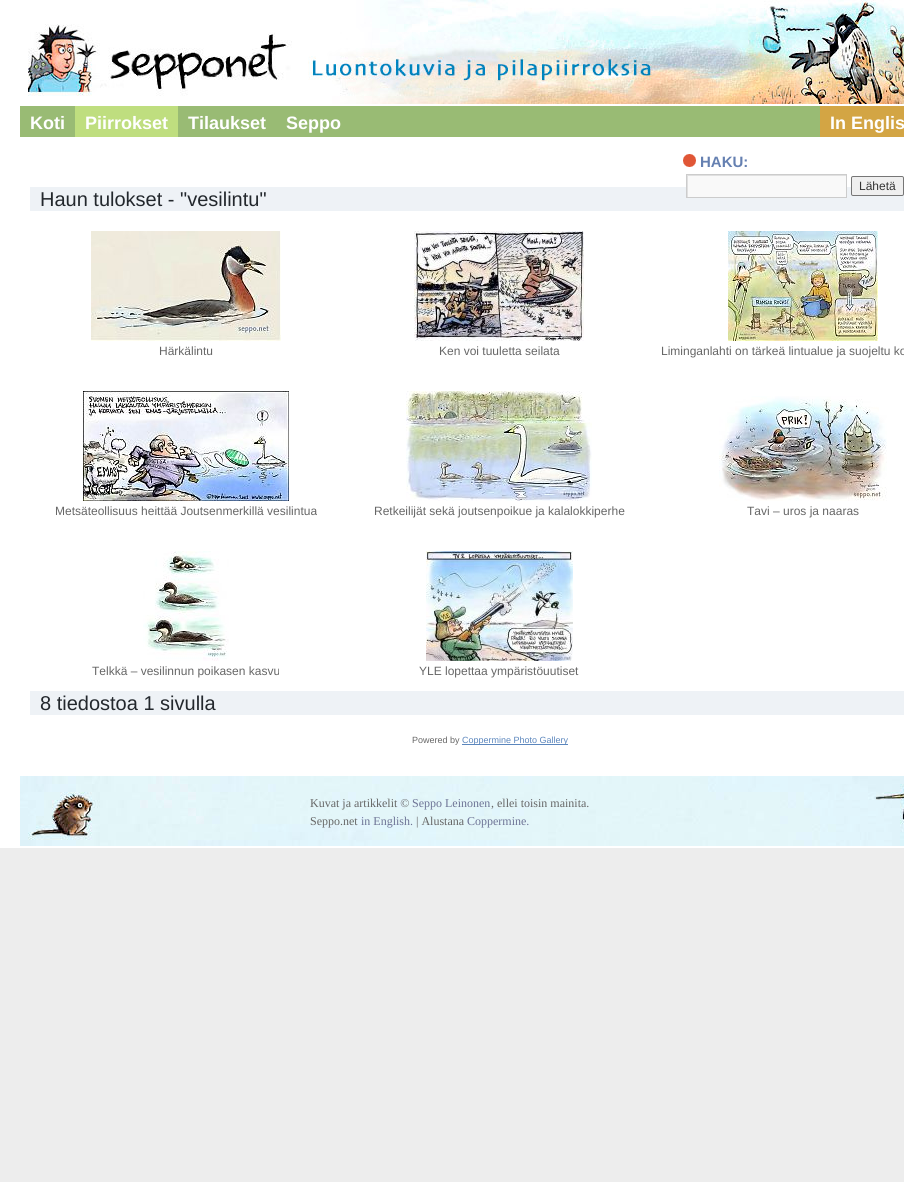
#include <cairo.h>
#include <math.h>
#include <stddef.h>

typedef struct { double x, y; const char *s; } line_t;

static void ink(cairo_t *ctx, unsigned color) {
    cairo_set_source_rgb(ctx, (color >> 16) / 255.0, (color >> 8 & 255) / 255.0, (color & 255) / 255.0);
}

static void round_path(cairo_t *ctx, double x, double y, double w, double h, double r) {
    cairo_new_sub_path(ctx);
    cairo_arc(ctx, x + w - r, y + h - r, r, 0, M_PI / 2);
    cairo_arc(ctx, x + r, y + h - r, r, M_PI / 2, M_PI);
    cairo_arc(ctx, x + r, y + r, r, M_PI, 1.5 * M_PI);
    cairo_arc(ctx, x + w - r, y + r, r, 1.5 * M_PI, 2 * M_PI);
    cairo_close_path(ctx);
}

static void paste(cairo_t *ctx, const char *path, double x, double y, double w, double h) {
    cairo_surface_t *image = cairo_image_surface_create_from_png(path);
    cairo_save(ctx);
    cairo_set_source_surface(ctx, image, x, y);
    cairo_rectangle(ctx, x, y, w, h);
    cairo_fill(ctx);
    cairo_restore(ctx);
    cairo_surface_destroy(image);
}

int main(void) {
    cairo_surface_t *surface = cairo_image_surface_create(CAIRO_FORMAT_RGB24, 904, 1182);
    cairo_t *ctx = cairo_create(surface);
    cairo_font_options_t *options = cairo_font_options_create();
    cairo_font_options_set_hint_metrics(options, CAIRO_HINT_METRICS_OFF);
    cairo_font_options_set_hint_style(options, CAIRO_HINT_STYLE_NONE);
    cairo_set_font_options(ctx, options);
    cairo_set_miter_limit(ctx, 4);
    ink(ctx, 0xEDEDED);
    cairo_paint(ctx);
    ink(ctx, 0xFFFFFF);
    cairo_rectangle(ctx, 0, 0, 904, 848);
    cairo_fill(ctx);
    paste(ctx, "media/1.png", 28, 0, 876, 104);
    ink(ctx, 0x99BB74);
    cairo_rectangle(ctx, 20, 106, 800, 31);
    cairo_fill(ctx);
    cairo_select_font_face(ctx, "Liberation Sans", CAIRO_FONT_SLANT_NORMAL, CAIRO_FONT_WEIGHT_BOLD);
    cairo_set_font_size(ctx, 18);
    ink(ctx, 0xFFFFFF);
    cairo_move_to(ctx, 30, 129);
    cairo_show_text(ctx, "Koti");
    ink(ctx, 0xBFDE7F);
    cairo_rectangle(ctx, 75, 106, 103, 31);
    cairo_fill(ctx);
    ink(ctx, 0xFFFFFF);
    {
        static const line_t items[] = {
            {85, 129, "Piirrokset"},
            {188, 129, "Tilaukset"},
            {286, 129, "Seppo"},
        };
        for (size_t i = 0; i < sizeof items / sizeof *items; i++) {
            cairo_move_to(ctx, items[i].x, items[i].y);
            cairo_show_text(ctx, items[i].s);
        }
    }
    ink(ctx, 0xD3A544);
    cairo_rectangle(ctx, 820, 106, 84, 31);
    cairo_fill(ctx);
    ink(ctx, 0xFFFFFF);
    cairo_move_to(ctx, 830, 129);
    cairo_show_text(ctx, "In Englis");
    paste(ctx, "media/2.png", 683, 154, 13, 13);
    cairo_set_font_size(ctx, 15);
    ink(ctx, 0x6580B1);
    cairo_move_to(ctx, 700, 167);
    cairo_show_text(ctx, "HAKU:");
    ink(ctx, 0xEEF2F6);
    cairo_rectangle(ctx, 30, 187, 874, 24);
    cairo_fill(ctx);
    ink(ctx, 0xF9F9F9);
    cairo_rectangle(ctx, 688, 176, 158, 21);
    cairo_fill(ctx);
    cairo_save(ctx);
    cairo_rectangle(ctx, 687, 175, 159, 22);
    cairo_clip(ctx);
    ink(ctx, 0xE0E0E0);
    cairo_set_fill_rule(ctx, CAIRO_FILL_RULE_EVEN_ODD);
    cairo_new_path(ctx);
    cairo_move_to(ctx, 588, 76);
    cairo_line_to(ctx, 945, 76);
    cairo_line_to(ctx, 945, 296);
    cairo_line_to(ctx, 588, 296);
    cairo_close_path(ctx);
    cairo_move_to(ctx, 688, 176);
    cairo_line_to(ctx, 847, 176);
    cairo_line_to(ctx, 847, 198);
    cairo_line_to(ctx, 688, 198);
    cairo_close_path(ctx);
    cairo_fill(ctx);
    cairo_restore(ctx);
    cairo_rectangle(ctx, 686.5, 174.5, 160, 23);
    ink(ctx, 0xCCCCCC);
    cairo_set_line_width(ctx, 1);
    cairo_stroke(ctx);
    ink(ctx, 0xEFEFEF);
    round_path(ctx, 851.5, 176.5, 52, 19, 1.5);
    cairo_fill_preserve(ctx);
    ink(ctx, 0x767676);
    cairo_stroke(ctx);
    cairo_select_font_face(ctx, "Liberation Sans", CAIRO_FONT_SLANT_NORMAL, CAIRO_FONT_WEIGHT_NORMAL);
    cairo_set_font_size(ctx, 12);
    ink(ctx, 0x333333);
    cairo_move_to(ctx, 859, 190);
    cairo_show_text(ctx, "Lähetä");
    cairo_set_font_size(ctx, 20);
    ink(ctx, 0x23282D);
    cairo_move_to(ctx, 40, 206);
    cairo_show_text(ctx, "Haun tulokset - \"vesilintu\"");
    paste(ctx, "media/3.png", 91, 231, 190, 110);
    cairo_set_font_size(ctx, 12);
    ink(ctx, 0x666666);
    cairo_move_to(ctx, 159, 355);
    cairo_show_text(ctx, "Härkälintu");
    paste(ctx, "media/4.png", 414, 231, 170, 110);
    cairo_move_to(ctx, 439, 355);
    cairo_show_text(ctx, "Ken voi tuuletta seilata");
    paste(ctx, "media/5.png", 728, 231, 150, 110);
    cairo_move_to(ctx, 661, 355);
    cairo_show_text(ctx, "Liminganlahti on tärkeä lintualue ja suojeltu ko");
    paste(ctx, "media/6.png", 83, 391, 206, 110);
    cairo_move_to(ctx, 55, 515);
    cairo_show_text(ctx, "Metsäteollisuus heittää Joutsenmerkillä vesilintua");
    paste(ctx, "media/7.png", 406, 391, 186, 110);
    cairo_move_to(ctx, 374, 515);
    cairo_show_text(ctx, "Retkeilijät sekä joutsenpoikue ja kalalokkiperhe");
    paste(ctx, "media/8.png", 719, 396, 168, 105);
    cairo_move_to(ctx, 747, 515);
    cairo_show_text(ctx, "Tavi – uros ja naaras");
    paste(ctx, "media/9.png", 143, 551, 86, 110);
    cairo_move_to(ctx, 92, 675);
    cairo_show_text(ctx, "Telkkä – vesilinnun poikasen kasvu");
    paste(ctx, "media/10.png", 426, 551, 147, 110);
    cairo_move_to(ctx, 419, 675);
    cairo_show_text(ctx, "YLE lopettaa ympäristöuutiset");
    ink(ctx, 0xEEF2F6);
    cairo_rectangle(ctx, 30, 691, 874, 24);
    cairo_fill(ctx);
    cairo_set_font_size(ctx, 20);
    ink(ctx, 0x23282D);
    cairo_move_to(ctx, 40, 710);
    cairo_show_text(ctx, "8 tiedostoa 1 sivulla");
    cairo_set_font_size(ctx, 9);
    ink(ctx, 0x666666);
    cairo_move_to(ctx, 412, 743);
    cairo_show_text(ctx, "Powered by");
    ink(ctx, 0x5B86BD);
    cairo_rectangle(ctx, 462, 744, 106, 1);
    cairo_fill(ctx);
    cairo_move_to(ctx, 462, 743);
    cairo_show_text(ctx, "Coppermine Photo Gallery");
    paste(ctx, "media/11.png", 20, 776, 884, 70);
    cairo_select_font_face(ctx, "Liberation Serif", CAIRO_FONT_SLANT_NORMAL, CAIRO_FONT_WEIGHT_NORMAL);
    cairo_set_font_size(ctx, 12);
    ink(ctx, 0x666666);
    cairo_move_to(ctx, 310, 807);
    cairo_show_text(ctx, "Kuvat ja artikkelit ©");
    ink(ctx, 0x6D7395);
    cairo_move_to(ctx, 412, 807);
    cairo_show_text(ctx, "Seppo Leinonen");
    ink(ctx, 0x666666);
    cairo_move_to(ctx, 491, 807);
    cairo_show_text(ctx, ", ellei toisin mainita.");
    cairo_move_to(ctx, 310, 825);
    cairo_show_text(ctx, "Seppo.net");
    ink(ctx, 0x6D7395);
    cairo_move_to(ctx, 361, 825);
    cairo_show_text(ctx, "in English.");
    ink(ctx, 0x666666);
    cairo_move_to(ctx, 416, 825);
    cairo_show_text(ctx, "| Alustana");
    ink(ctx, 0x6D7395);
    cairo_move_to(ctx, 467, 825);
    cairo_show_text(ctx, "Coppermine.");
    cairo_surface_write_to_png(surface, "image.png");
    cairo_font_options_destroy(options);
    cairo_destroy(ctx);
    cairo_surface_destroy(surface);
    return 0;
}
